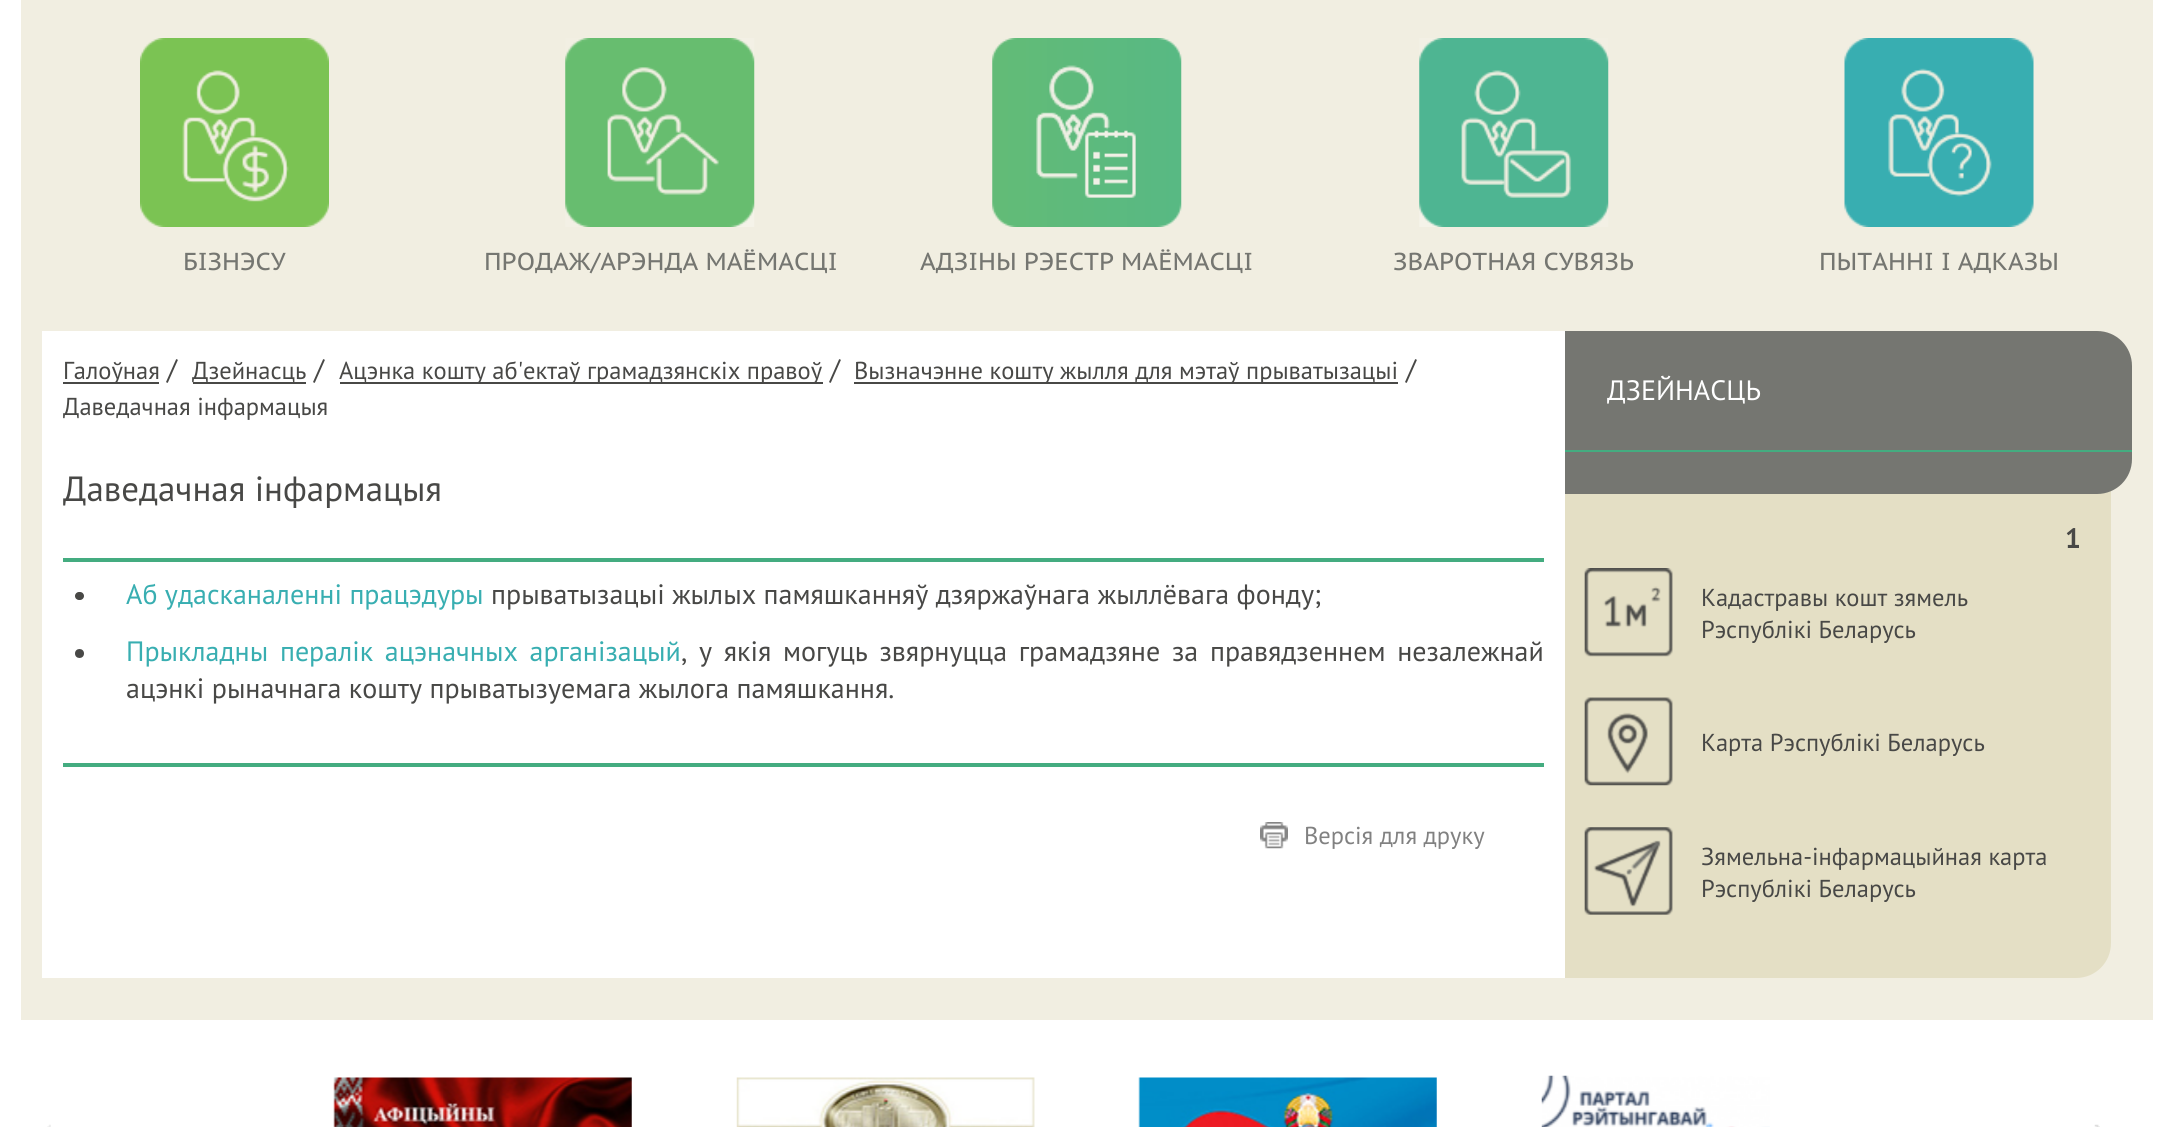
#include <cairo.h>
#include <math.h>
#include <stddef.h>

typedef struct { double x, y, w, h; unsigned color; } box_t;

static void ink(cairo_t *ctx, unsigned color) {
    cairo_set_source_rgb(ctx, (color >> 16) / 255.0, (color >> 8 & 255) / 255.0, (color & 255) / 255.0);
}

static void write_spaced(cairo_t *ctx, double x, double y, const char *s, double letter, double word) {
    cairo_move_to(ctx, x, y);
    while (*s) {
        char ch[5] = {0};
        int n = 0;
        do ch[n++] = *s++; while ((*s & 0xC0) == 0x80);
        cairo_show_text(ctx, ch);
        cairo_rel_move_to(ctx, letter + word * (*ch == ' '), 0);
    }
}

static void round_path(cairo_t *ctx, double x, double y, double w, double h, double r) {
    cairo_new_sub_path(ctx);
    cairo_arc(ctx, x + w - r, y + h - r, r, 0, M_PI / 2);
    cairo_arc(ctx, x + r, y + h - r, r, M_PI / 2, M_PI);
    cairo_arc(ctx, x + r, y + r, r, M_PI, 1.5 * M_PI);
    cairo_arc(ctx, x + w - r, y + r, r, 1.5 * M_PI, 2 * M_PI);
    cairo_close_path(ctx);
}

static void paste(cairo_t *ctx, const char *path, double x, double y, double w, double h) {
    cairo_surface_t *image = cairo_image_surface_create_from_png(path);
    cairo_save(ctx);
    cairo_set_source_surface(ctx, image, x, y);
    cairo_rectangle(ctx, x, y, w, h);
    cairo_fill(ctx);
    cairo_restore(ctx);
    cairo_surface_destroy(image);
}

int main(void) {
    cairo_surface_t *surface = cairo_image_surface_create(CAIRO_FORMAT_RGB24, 2172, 1127);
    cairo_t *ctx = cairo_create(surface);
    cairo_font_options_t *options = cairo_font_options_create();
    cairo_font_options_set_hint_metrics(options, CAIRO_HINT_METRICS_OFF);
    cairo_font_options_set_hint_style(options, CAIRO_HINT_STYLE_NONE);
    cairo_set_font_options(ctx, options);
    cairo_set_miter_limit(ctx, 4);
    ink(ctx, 0xFFFFFF);
    cairo_paint(ctx);
    ink(ctx, 0xF1EEE1);
    cairo_rectangle(ctx, 21, 0, 2132, 331);
    cairo_fill(ctx);
    paste(ctx, "media/1.png", 140, 38, 189, 189);
    cairo_select_font_face(ctx, "PT Sans Caption", CAIRO_FONT_SLANT_NORMAL, CAIRO_FONT_WEIGHT_NORMAL);
    cairo_set_font_size(ctx, 24.5);
    ink(ctx, 0x757671);
    cairo_move_to(ctx, 183, 270);
    cairo_show_text(ctx, "БІЗНЭСУ");
    paste(ctx, "media/2.png", 565, 38, 190, 189);
    cairo_move_to(ctx, 484, 270);
    cairo_show_text(ctx, "ПРОДАЖ/АРЭНДА МАЁМАСЦI");
    paste(ctx, "media/3.png", 992, 38, 190, 189);
    cairo_move_to(ctx, 920, 270);
    cairo_show_text(ctx, "АДЗІНЫ РЭЕСТР МАЁМАСЦІ");
    paste(ctx, "media/4.png", 1419, 38, 190, 189);
    cairo_move_to(ctx, 1393, 270);
    cairo_show_text(ctx, "ЗВАРОТНАЯ СУВЯЗЬ");
    paste(ctx, "media/5.png", 1844, 38, 190, 189);
    cairo_move_to(ctx, 1819, 270);
    cairo_show_text(ctx, "ПЫТАННІ І АДКАЗЫ");
    {
        static const box_t items[] = {
            {42, 978, 1523, 42, 0xF1EEE1},
            {21, 331, 21, 689, 0xF1EEE1},
            {63, 382, 96, 2, 0x484846},
        };
        for (size_t i = 0; i < sizeof items / sizeof *items; i++) {
            ink(ctx, items[i].color);
            cairo_rectangle(ctx, items[i].x, items[i].y, items[i].w, items[i].h);
            cairo_fill(ctx);
        }
    }
    cairo_select_font_face(ctx, "PT Sans", CAIRO_FONT_SLANT_NORMAL, CAIRO_FONT_WEIGHT_NORMAL);
    cairo_move_to(ctx, 63, 379);
    cairo_show_text(ctx, "Галоўная");
    cairo_set_font_size(ctx, 28);
    cairo_move_to(ctx, 167, 379);
    cairo_show_text(ctx, "/");
    cairo_rectangle(ctx, 193, 382, 113, 2);
    cairo_fill(ctx);
    cairo_set_font_size(ctx, 24.5);
    cairo_move_to(ctx, 192, 379);
    cairo_show_text(ctx, "Дзейнасць");
    cairo_set_font_size(ctx, 28);
    cairo_move_to(ctx, 314, 379);
    cairo_show_text(ctx, "/");
    cairo_rectangle(ctx, 340, 382, 483, 2);
    cairo_fill(ctx);
    cairo_set_font_size(ctx, 24.5);
    cairo_move_to(ctx, 339, 379);
    cairo_show_text(ctx, "Ацэнка кошту аб'ектаў грамадзянскіх правоў");
    cairo_set_font_size(ctx, 28);
    cairo_move_to(ctx, 830, 379);
    cairo_show_text(ctx, "/");
    cairo_rectangle(ctx, 854, 382, 544, 2);
    cairo_fill(ctx);
    cairo_set_font_size(ctx, 24.5);
    cairo_move_to(ctx, 854, 379);
    cairo_show_text(ctx, "Вызначэнне кошту жылля для мэтаў прыватызацыі");
    cairo_set_font_size(ctx, 28);
    cairo_move_to(ctx, 1406, 379);
    cairo_show_text(ctx, "/");
    cairo_set_font_size(ctx, 24.5);
    cairo_move_to(ctx, 63, 415);
    cairo_show_text(ctx, "Даведачная інфармацыя");
    cairo_set_font_size(ctx, 35);
    cairo_move_to(ctx, 63, 501);
    cairo_show_text(ctx, "Даведачная інфармацыя");
    ink(ctx, 0x44AC80);
    cairo_rectangle(ctx, 63, 558, 1481, 4);
    cairo_fill(ctx);
    ink(ctx, 0x484846);
    round_path(ctx, 75, 592, 9, 8, 4);
    cairo_fill(ctx);
    cairo_set_font_size(ctx, 28);
    ink(ctx, 0x38AEB1);
    cairo_move_to(ctx, 126, 604);
    cairo_show_text(ctx, "Аб удасканаленні працэдуры");
    ink(ctx, 0x484846);
    cairo_move_to(ctx, 491, 604);
    cairo_show_text(ctx, "прыватызацыі жылых памяшканняў дзяржаўнага жыллёвага фонду;");
    cairo_new_path(ctx);
    cairo_arc(ctx, 79.5, 653.5, 4.5, 0, 2 * M_PI);
    cairo_fill(ctx);
    ink(ctx, 0x38AEB1);
    write_spaced(ctx, 126, 661, "Прыкладны пералік ацэначных арганізацый", 0, 4.25);
    ink(ctx, 0x484846);
    write_spaced(ctx, 681, 661, ", у якія могуць звярнуцца грамадзяне за правядзеннем незалежнай", 0, 4.25);
    cairo_move_to(ctx, 126, 698);
    cairo_show_text(ctx, "ацэнкі рыначнага кошту прыватызуемага жылога памяшкання.");
    ink(ctx, 0x44AC80);
    cairo_rectangle(ctx, 63, 763, 1481, 4);
    cairo_fill(ctx);
    paste(ctx, "media/6.png", 1260, 822, 28, 27);
    cairo_set_font_size(ctx, 24.5);
    ink(ctx, 0x818181);
    cairo_move_to(ctx, 1304, 844);
    cairo_show_text(ctx, "Версія для друку");
    ink(ctx, 0xF1EEE1);
    cairo_rectangle(ctx, 1565, 331, 588, 689);
    cairo_fill(ctx);
    ink(ctx, 0xE4DFC5);
    cairo_new_path(ctx);
    cairo_move_to(ctx, 1565, 485);
    cairo_line_to(ctx, 2111, 485);
    cairo_line_to(ctx, 2111, 943);
    cairo_curve_to(ctx, 2111, 962.5, 2095.5, 978, 2076, 978);
    cairo_line_to(ctx, 1565, 978);
    cairo_close_path(ctx);
    cairo_fill(ctx);
    ink(ctx, 0x757671);
    cairo_new_path(ctx);
    cairo_move_to(ctx, 1565, 331);
    cairo_line_to(ctx, 2097, 331);
    cairo_curve_to(ctx, 2116.5, 331, 2132, 346.5, 2132, 366);
    cairo_line_to(ctx, 2132, 459);
    cairo_curve_to(ctx, 2132, 478.5, 2116.5, 494, 2097, 494);
    cairo_line_to(ctx, 1565, 494);
    cairo_close_path(ctx);
    cairo_fill(ctx);
    ink(ctx, 0x44AC80);
    cairo_rectangle(ctx, 1565, 450, 567, 2);
    cairo_fill(ctx);
    cairo_set_font_size(ctx, 28);
    ink(ctx, 0xFFFFFF);
    cairo_move_to(ctx, 1607, 400);
    cairo_show_text(ctx, "ДЗЕЙНАСЦЬ");
    cairo_select_font_face(ctx, "PT Sans", CAIRO_FONT_SLANT_NORMAL, CAIRO_FONT_WEIGHT_BOLD);
    ink(ctx, 0x484846);
    cairo_move_to(ctx, 2065, 548);
    cairo_show_text(ctx, "1");
    paste(ctx, "media/7.png", 1584, 568, 89, 89);
    cairo_select_font_face(ctx, "PT Sans", CAIRO_FONT_SLANT_NORMAL, CAIRO_FONT_WEIGHT_NORMAL);
    cairo_set_font_size(ctx, 24.5);
    cairo_move_to(ctx, 1701, 606);
    cairo_show_text(ctx, "Кадастравы кошт зямель");
    cairo_move_to(ctx, 1701, 638);
    cairo_show_text(ctx, "Рэспублікі Беларусь");
    paste(ctx, "media/8.png", 1584, 697, 89, 89);
    cairo_move_to(ctx, 1701, 751);
    cairo_show_text(ctx, "Карта Рэспублікі Беларусь");
    paste(ctx, "media/9.png", 1584, 827, 89, 88);
    cairo_move_to(ctx, 1701, 865);
    cairo_show_text(ctx, "Зямельна-інфармацыйная карта");
    cairo_move_to(ctx, 1701, 897);
    cairo_show_text(ctx, "Рэспублікі Беларусь");
    paste(ctx, "media/10.png", 47, 1124, 4, 3);
    paste(ctx, "media/11.png", 333, 1077, 299, 50);
    paste(ctx, "media/12.png", 736, 1077, 299, 50);
    paste(ctx, "media/13.png", 1138, 1077, 299, 50);
    paste(ctx, "media/14.png", 1541, 1075, 229, 52);
    paste(ctx, "media/15.png", 2094, 1124, 6, 3);
    cairo_surface_write_to_png(surface, "image.png");
    cairo_font_options_destroy(options);
    cairo_destroy(ctx);
    cairo_surface_destroy(surface);
    return 0;
}
